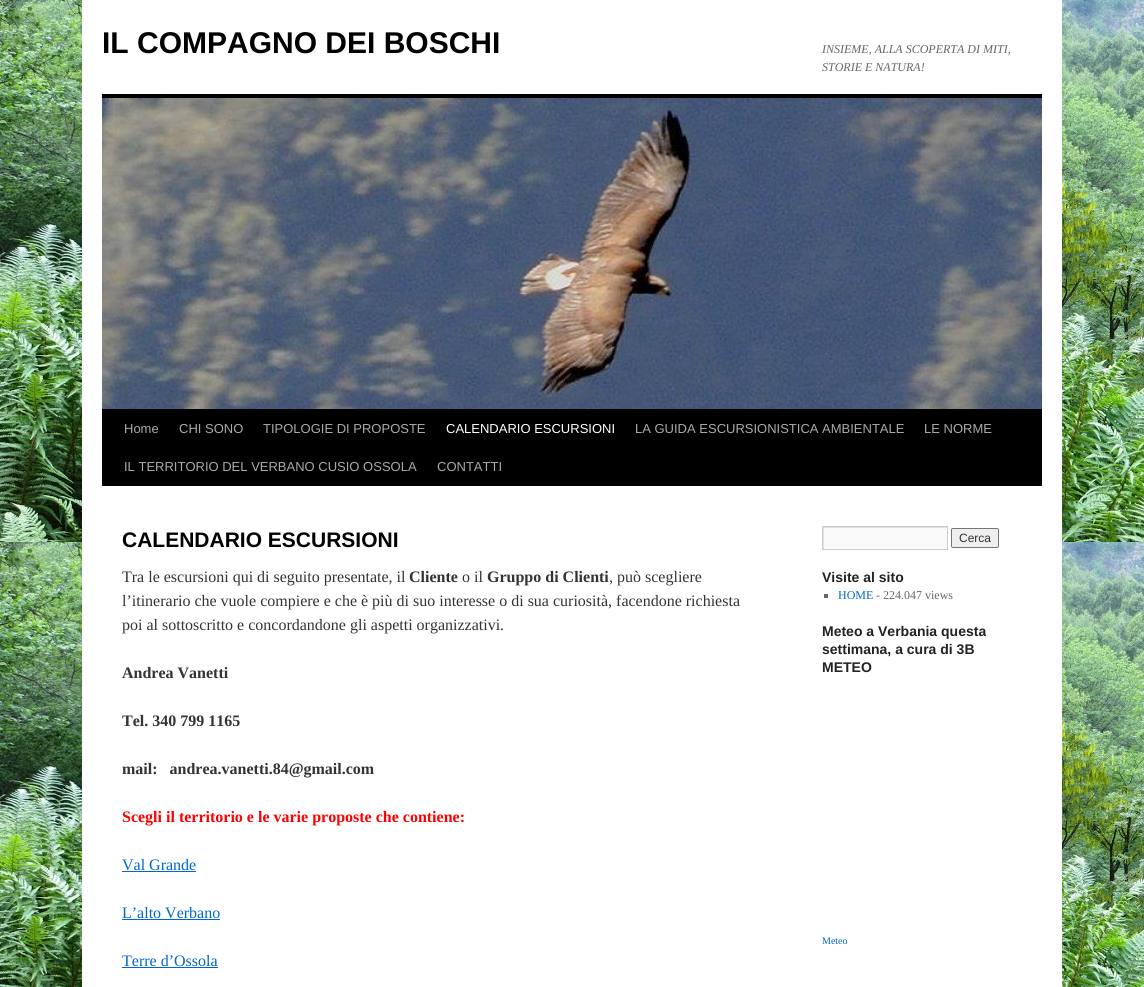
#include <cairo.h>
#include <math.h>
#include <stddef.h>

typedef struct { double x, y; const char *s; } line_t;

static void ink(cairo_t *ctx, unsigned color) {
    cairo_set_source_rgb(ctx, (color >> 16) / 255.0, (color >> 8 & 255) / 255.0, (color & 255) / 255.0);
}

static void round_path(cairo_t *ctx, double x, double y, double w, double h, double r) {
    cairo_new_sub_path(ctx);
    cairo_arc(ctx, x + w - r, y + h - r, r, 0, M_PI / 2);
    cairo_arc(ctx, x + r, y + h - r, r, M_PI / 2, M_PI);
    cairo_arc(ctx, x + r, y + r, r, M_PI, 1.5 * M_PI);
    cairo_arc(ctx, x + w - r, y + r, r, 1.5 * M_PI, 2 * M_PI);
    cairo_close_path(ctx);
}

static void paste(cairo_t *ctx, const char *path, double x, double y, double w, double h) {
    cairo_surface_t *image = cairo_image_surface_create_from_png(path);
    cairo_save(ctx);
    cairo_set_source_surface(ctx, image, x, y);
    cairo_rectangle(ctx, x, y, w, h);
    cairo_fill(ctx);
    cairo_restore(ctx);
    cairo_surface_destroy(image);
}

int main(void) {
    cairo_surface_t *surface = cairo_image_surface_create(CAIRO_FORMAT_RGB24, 1144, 987);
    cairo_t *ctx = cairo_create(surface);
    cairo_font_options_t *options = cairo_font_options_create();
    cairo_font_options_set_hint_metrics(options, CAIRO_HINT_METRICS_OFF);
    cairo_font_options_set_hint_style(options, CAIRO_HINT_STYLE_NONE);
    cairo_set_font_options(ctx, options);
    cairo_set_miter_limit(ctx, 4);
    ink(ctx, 0xFFFFFF);
    cairo_paint(ctx);
    paste(ctx, "media/1.png", 0, 0, 1144, 987);
    ink(ctx, 0xFFFFFF);
    cairo_rectangle(ctx, 82, 0, 980, 987);
    cairo_fill(ctx);
    cairo_select_font_face(ctx, "Liberation Sans", CAIRO_FONT_SLANT_NORMAL, CAIRO_FONT_WEIGHT_BOLD);
    cairo_set_font_size(ctx, 30);
    ink(ctx, 0x000000);
    cairo_move_to(ctx, 102, 53);
    cairo_show_text(ctx, "IL COMPAGNO DEI BOSCHI");
    cairo_select_font_face(ctx, "Liberation Serif", CAIRO_FONT_SLANT_ITALIC, CAIRO_FONT_WEIGHT_NORMAL);
    cairo_set_font_size(ctx, 12);
    ink(ctx, 0x666666);
    cairo_move_to(ctx, 822, 53);
    cairo_show_text(ctx, "INSIEME, ALLA SCOPERTA DI MITI,");
    cairo_move_to(ctx, 822, 71);
    cairo_show_text(ctx, "STORIE E NATURA!");
    ink(ctx, 0x000000);
    cairo_rectangle(ctx, 102, 94, 940, 4);
    cairo_fill(ctx);
    cairo_rectangle(ctx, 102, 409, 940, 77);
    cairo_fill(ctx);
    paste(ctx, "media/2.png", 102, 98, 940, 311);
    cairo_select_font_face(ctx, "Liberation Sans", CAIRO_FONT_SLANT_NORMAL, CAIRO_FONT_WEIGHT_NORMAL);
    cairo_set_font_size(ctx, 13);
    ink(ctx, 0xAAAAAA);
    {
        static const line_t items[] = {
            {124, 433, "Home"},
            {179, 433, "CHI SONO"},
            {263, 433, "TIPOLOGIE DI PROPOSTE"},
        };
        for (size_t i = 0; i < sizeof items / sizeof *items; i++) {
            cairo_move_to(ctx, items[i].x, items[i].y);
            cairo_show_text(ctx, items[i].s);
        }
    }
    ink(ctx, 0xFFFFFF);
    cairo_move_to(ctx, 446, 433);
    cairo_show_text(ctx, "CALENDARIO ESCURSIONI");
    ink(ctx, 0xAAAAAA);
    {
        static const line_t items[] = {
            {635, 433, "LA GUIDA ESCURSIONISTICA AMBIENTALE"},
            {924, 433, "LE NORME"},
            {124, 471, "IL TERRITORIO DEL VERBANO CUSIO OSSOLA"},
            {437, 471, "CONTATTI"},
        };
        for (size_t i = 0; i < sizeof items / sizeof *items; i++) {
            cairo_move_to(ctx, items[i].x, items[i].y);
            cairo_show_text(ctx, items[i].s);
        }
    }
    cairo_select_font_face(ctx, "Liberation Sans", CAIRO_FONT_SLANT_NORMAL, CAIRO_FONT_WEIGHT_BOLD);
    cairo_set_font_size(ctx, 21);
    ink(ctx, 0x000000);
    cairo_move_to(ctx, 122, 547);
    cairo_show_text(ctx, "CALENDARIO ESCURSIONI");
    cairo_select_font_face(ctx, "Liberation Serif", CAIRO_FONT_SLANT_NORMAL, CAIRO_FONT_WEIGHT_NORMAL);
    cairo_set_font_size(ctx, 16);
    ink(ctx, 0x333333);
    cairo_move_to(ctx, 122, 582);
    cairo_show_text(ctx, "Tra le escursioni qui di seguito presentate, il");
    cairo_select_font_face(ctx, "Liberation Serif", CAIRO_FONT_SLANT_NORMAL, CAIRO_FONT_WEIGHT_BOLD);
    cairo_move_to(ctx, 409, 582);
    cairo_show_text(ctx, "Cliente");
    cairo_select_font_face(ctx, "Liberation Serif", CAIRO_FONT_SLANT_NORMAL, CAIRO_FONT_WEIGHT_NORMAL);
    cairo_move_to(ctx, 462, 582);
    cairo_show_text(ctx, "o il");
    cairo_select_font_face(ctx, "Liberation Serif", CAIRO_FONT_SLANT_NORMAL, CAIRO_FONT_WEIGHT_BOLD);
    cairo_move_to(ctx, 487, 582);
    cairo_show_text(ctx, "Gruppo di Clienti");
    cairo_select_font_face(ctx, "Liberation Serif", CAIRO_FONT_SLANT_NORMAL, CAIRO_FONT_WEIGHT_NORMAL);
    {
        static const line_t items[] = {
            {609, 582, ", può scegliere"},
            {122, 606, "l’itinerario che vuole compiere e che è più di suo interesse o di sua curiosità, facendone richiesta"},
            {122, 630, "poi al sottoscritto e concordandone gli aspetti organizzativi."},
        };
        for (size_t i = 0; i < sizeof items / sizeof *items; i++) {
            cairo_move_to(ctx, items[i].x, items[i].y);
            cairo_show_text(ctx, items[i].s);
        }
    }
    cairo_select_font_face(ctx, "Liberation Serif", CAIRO_FONT_SLANT_NORMAL, CAIRO_FONT_WEIGHT_BOLD);
    {
        static const line_t items[] = {
            {122, 678, "Andrea Vanetti"},
            {122, 726, "Tel. 340 799 1165"},
            {122, 774, "mail:   andrea.vanetti.84@gmail.com"},
        };
        for (size_t i = 0; i < sizeof items / sizeof *items; i++) {
            cairo_move_to(ctx, items[i].x, items[i].y);
            cairo_show_text(ctx, items[i].s);
        }
    }
    ink(ctx, 0xFF0000);
    cairo_move_to(ctx, 122, 822);
    cairo_show_text(ctx, "Scegli il territorio e le varie proposte che contiene:");
    cairo_select_font_face(ctx, "Liberation Serif", CAIRO_FONT_SLANT_NORMAL, CAIRO_FONT_WEIGHT_NORMAL);
    ink(ctx, 0x0066CC);
    cairo_move_to(ctx, 122, 870);
    cairo_show_text(ctx, "Val Grande");
    cairo_rectangle(ctx, 122, 871, 74, 1);
    cairo_fill(ctx);
    cairo_move_to(ctx, 122, 918);
    cairo_show_text(ctx, "L’alto Verbano");
    cairo_rectangle(ctx, 122, 919, 98, 1);
    cairo_fill(ctx);
    cairo_move_to(ctx, 122, 966);
    cairo_show_text(ctx, "Terre d’Ossola");
    cairo_rectangle(ctx, 122, 967, 96, 1);
    cairo_fill(ctx);
    ink(ctx, 0xF9F9F9);
    cairo_rectangle(ctx, 824, 528, 123, 21);
    cairo_fill(ctx);
    cairo_save(ctx);
    cairo_rectangle(ctx, 823, 527, 124, 22);
    cairo_clip(ctx);
    ink(ctx, 0xE0E0E0);
    cairo_set_fill_rule(ctx, CAIRO_FILL_RULE_EVEN_ODD);
    cairo_new_path(ctx);
    cairo_move_to(ctx, 724, 428);
    cairo_line_to(ctx, 1046, 428);
    cairo_line_to(ctx, 1046, 648);
    cairo_line_to(ctx, 724, 648);
    cairo_close_path(ctx);
    cairo_move_to(ctx, 824, 528);
    cairo_line_to(ctx, 948, 528);
    cairo_line_to(ctx, 948, 550);
    cairo_line_to(ctx, 824, 550);
    cairo_close_path(ctx);
    cairo_fill(ctx);
    cairo_restore(ctx);
    cairo_rectangle(ctx, 822.5, 526.5, 125, 23);
    ink(ctx, 0xCCCCCC);
    cairo_set_line_width(ctx, 1);
    cairo_stroke(ctx);
    ink(ctx, 0xEFEFEF);
    round_path(ctx, 951.5, 528.5, 47, 19, 1.5);
    cairo_fill_preserve(ctx);
    ink(ctx, 0x767676);
    cairo_stroke(ctx);
    cairo_select_font_face(ctx, "Liberation Sans", CAIRO_FONT_SLANT_NORMAL, CAIRO_FONT_WEIGHT_NORMAL);
    cairo_set_font_size(ctx, 12);
    ink(ctx, 0x333333);
    cairo_move_to(ctx, 959, 542);
    cairo_show_text(ctx, "Cerca");
    cairo_select_font_face(ctx, "Liberation Sans", CAIRO_FONT_SLANT_NORMAL, CAIRO_FONT_WEIGHT_BOLD);
    cairo_set_font_size(ctx, 14);
    ink(ctx, 0x222222);
    cairo_move_to(ctx, 822, 582);
    cairo_show_text(ctx, "Visite al sito");
    ink(ctx, 0x666666);
    cairo_rectangle(ctx, 824, 594, 4, 4);
    cairo_fill(ctx);
    cairo_select_font_face(ctx, "Liberation Serif", CAIRO_FONT_SLANT_NORMAL, CAIRO_FONT_WEIGHT_NORMAL);
    cairo_set_font_size(ctx, 12);
    ink(ctx, 0x0066CC);
    cairo_move_to(ctx, 838, 599);
    cairo_show_text(ctx, "HOME");
    ink(ctx, 0x666666);
    cairo_move_to(ctx, 876, 599);
    cairo_show_text(ctx, "- 224.047 views");
    cairo_select_font_face(ctx, "Liberation Sans", CAIRO_FONT_SLANT_NORMAL, CAIRO_FONT_WEIGHT_BOLD);
    cairo_set_font_size(ctx, 14);
    ink(ctx, 0x222222);
    {
        static const line_t items[] = {
            {822, 636, "Meteo a Verbania questa"},
            {822, 654, "settimana, a cura di 3B"},
            {822, 672, "METEO"},
        };
        for (size_t i = 0; i < sizeof items / sizeof *items; i++) {
            cairo_move_to(ctx, items[i].x, items[i].y);
            cairo_show_text(ctx, items[i].s);
        }
    }
    cairo_select_font_face(ctx, "Liberation Serif", CAIRO_FONT_SLANT_NORMAL, CAIRO_FONT_WEIGHT_NORMAL);
    cairo_set_font_size(ctx, 10);
    ink(ctx, 0x0066CC);
    cairo_move_to(ctx, 822, 944);
    cairo_show_text(ctx, "Meteo");
    cairo_surface_write_to_png(surface, "image.png");
    cairo_font_options_destroy(options);
    cairo_destroy(ctx);
    cairo_surface_destroy(surface);
    return 0;
}
